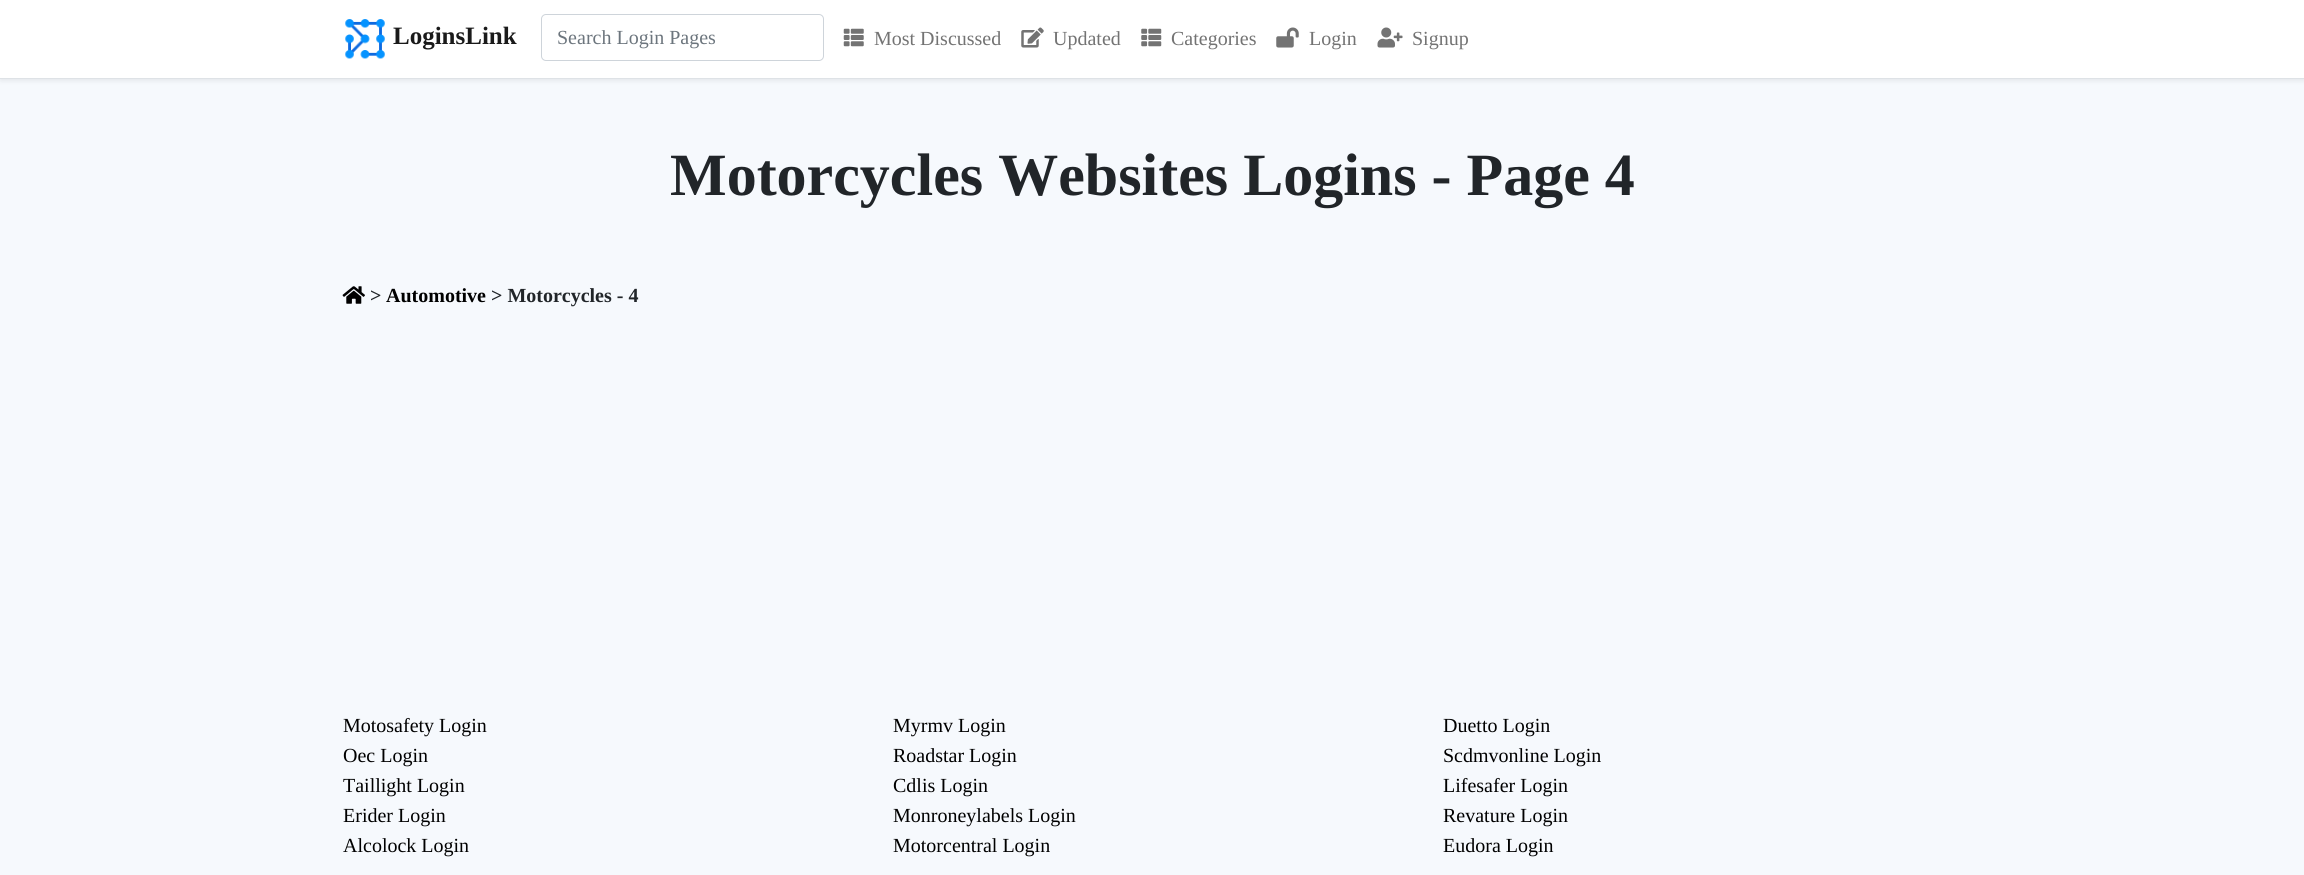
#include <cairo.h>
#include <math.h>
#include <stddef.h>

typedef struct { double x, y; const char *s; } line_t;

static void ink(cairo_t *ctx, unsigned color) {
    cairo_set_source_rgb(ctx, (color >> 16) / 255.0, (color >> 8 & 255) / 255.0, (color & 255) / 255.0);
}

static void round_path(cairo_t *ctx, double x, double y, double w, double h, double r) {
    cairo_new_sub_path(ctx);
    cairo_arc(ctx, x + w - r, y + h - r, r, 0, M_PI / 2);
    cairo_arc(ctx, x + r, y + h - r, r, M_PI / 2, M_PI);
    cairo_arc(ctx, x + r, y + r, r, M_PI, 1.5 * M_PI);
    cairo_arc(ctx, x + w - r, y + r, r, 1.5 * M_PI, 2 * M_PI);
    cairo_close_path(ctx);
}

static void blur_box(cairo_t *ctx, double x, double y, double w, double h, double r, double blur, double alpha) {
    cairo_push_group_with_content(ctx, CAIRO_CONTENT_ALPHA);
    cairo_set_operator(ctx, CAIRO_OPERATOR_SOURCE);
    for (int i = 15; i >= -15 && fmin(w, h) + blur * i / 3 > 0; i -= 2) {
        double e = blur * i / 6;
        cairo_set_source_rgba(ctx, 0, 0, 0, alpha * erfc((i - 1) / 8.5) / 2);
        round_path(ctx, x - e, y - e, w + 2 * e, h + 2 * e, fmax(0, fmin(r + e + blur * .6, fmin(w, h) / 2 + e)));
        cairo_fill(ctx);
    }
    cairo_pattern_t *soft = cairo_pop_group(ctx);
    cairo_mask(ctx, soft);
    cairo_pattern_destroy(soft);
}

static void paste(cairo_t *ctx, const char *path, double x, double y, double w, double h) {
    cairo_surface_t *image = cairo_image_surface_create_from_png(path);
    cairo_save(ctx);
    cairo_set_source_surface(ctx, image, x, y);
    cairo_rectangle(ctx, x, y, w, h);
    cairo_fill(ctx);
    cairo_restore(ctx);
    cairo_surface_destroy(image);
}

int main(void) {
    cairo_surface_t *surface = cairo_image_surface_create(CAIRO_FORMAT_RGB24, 2304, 875);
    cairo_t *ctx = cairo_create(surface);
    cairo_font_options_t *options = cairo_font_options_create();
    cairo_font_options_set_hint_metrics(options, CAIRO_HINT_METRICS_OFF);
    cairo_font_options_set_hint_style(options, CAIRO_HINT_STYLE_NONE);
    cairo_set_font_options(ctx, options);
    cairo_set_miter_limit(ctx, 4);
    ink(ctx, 0xF6F9FD);
    cairo_paint(ctx);
    ink(ctx, 0x000000);
    blur_box(ctx, 0, 3, 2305, 78, 0, 2.5, 0.07);
    ink(ctx, 0xFFFFFF);
    cairo_rectangle(ctx, 0, 0, 2304, 78);
    cairo_fill(ctx);
    ink(ctx, 0xDEE2E6);
    cairo_rectangle(ctx, 0, 78, 2304, 1);
    cairo_fill(ctx);
    paste(ctx, "media/1.png", 345, 19, 40, 40);
    cairo_select_font_face(ctx, "Liberation Serif", CAIRO_FONT_SLANT_NORMAL, CAIRO_FONT_WEIGHT_BOLD);
    cairo_set_font_size(ctx, 25);
    ink(ctx, 0x1A1A1A);
    cairo_move_to(ctx, 393, 44);
    cairo_show_text(ctx, "LoginsLink");
    round_path(ctx, 541.5, 14.5, 282, 46, 4.5);
    ink(ctx, 0xCED4DA);
    cairo_set_line_width(ctx, 1);
    cairo_stroke(ctx);
    cairo_select_font_face(ctx, "Liberation Serif", CAIRO_FONT_SLANT_NORMAL, CAIRO_FONT_WEIGHT_NORMAL);
    cairo_set_font_size(ctx, 20);
    ink(ctx, 0x6C757D);
    cairo_move_to(ctx, 557, 44);
    cairo_show_text(ctx, "Search Login Pages");
    paste(ctx, "media/2.png", 843, 28, 21, 19);
    ink(ctx, 0x737373);
    cairo_move_to(ctx, 874, 45);
    cairo_show_text(ctx, "Most Discussed");
    paste(ctx, "media/3.png", 1021, 27, 23, 21);
    cairo_move_to(ctx, 1053, 45);
    cairo_show_text(ctx, "Updated");
    paste(ctx, "media/4.png", 1141, 28, 21, 19);
    cairo_move_to(ctx, 1171, 45);
    cairo_show_text(ctx, "Categories");
    paste(ctx, "media/5.png", 1276, 27, 23, 21);
    cairo_move_to(ctx, 1309, 45);
    cairo_show_text(ctx, "Login");
    paste(ctx, "media/6.png", 1377, 27, 26, 21);
    cairo_move_to(ctx, 1412, 45);
    cairo_show_text(ctx, "Signup");
    cairo_select_font_face(ctx, "Liberation Serif", CAIRO_FONT_SLANT_NORMAL, CAIRO_FONT_WEIGHT_BOLD);
    cairo_set_font_size(ctx, 60);
    ink(ctx, 0x212529);
    cairo_move_to(ctx, 670, 195);
    cairo_show_text(ctx, "Motorcycles Websites Logins - Page 4");
    paste(ctx, "media/7.png", 342, 286, 23, 18);
    cairo_set_font_size(ctx, 20);
    cairo_move_to(ctx, 370, 302);
    cairo_show_text(ctx, ">");
    ink(ctx, 0x000000);
    cairo_move_to(ctx, 386, 302);
    cairo_show_text(ctx, "Automotive");
    ink(ctx, 0x212529);
    cairo_move_to(ctx, 491, 302);
    cairo_show_text(ctx, "> Motorcycles - 4");
    cairo_select_font_face(ctx, "Liberation Serif", CAIRO_FONT_SLANT_NORMAL, CAIRO_FONT_WEIGHT_NORMAL);
    ink(ctx, 0x000000);
    {
        static const line_t items[] = {
            {343, 732, "Motosafety Login"},
            {893, 732, "Myrmv Login"},
            {1443, 732, "Duetto Login"},
            {343, 762, "Oec Login"},
            {893, 762, "Roadstar Login"},
            {1443, 762, "Scdmvonline Login"},
            {343, 792, "Taillight Login"},
            {893, 792, "Cdlis Login"},
            {1443, 792, "Lifesafer Login"},
            {343, 822, "Erider Login"},
            {893, 822, "Monroneylabels Login"},
            {1443, 822, "Revature Login"},
            {343, 852, "Alcolock Login"},
            {893, 852, "Motorcentral Login"},
            {1443, 852, "Eudora Login"},
        };
        for (size_t i = 0; i < sizeof items / sizeof *items; i++) {
            cairo_move_to(ctx, items[i].x, items[i].y);
            cairo_show_text(ctx, items[i].s);
        }
    }
    cairo_surface_write_to_png(surface, "image.png");
    cairo_font_options_destroy(options);
    cairo_destroy(ctx);
    cairo_surface_destroy(surface);
    return 0;
}
